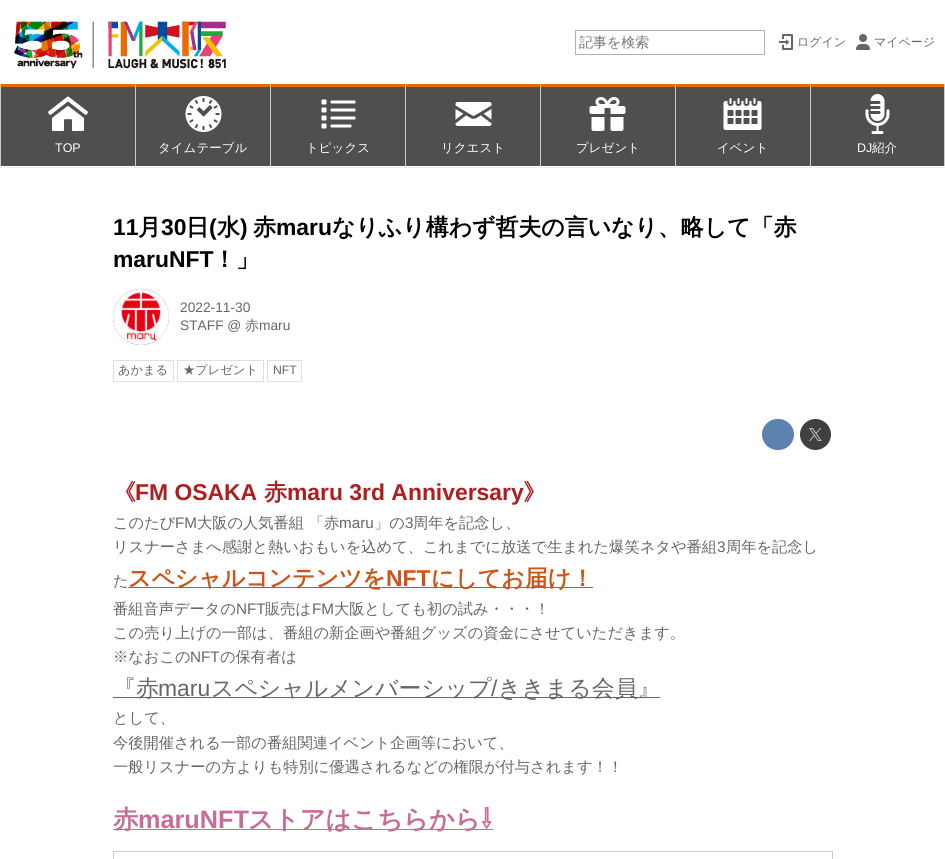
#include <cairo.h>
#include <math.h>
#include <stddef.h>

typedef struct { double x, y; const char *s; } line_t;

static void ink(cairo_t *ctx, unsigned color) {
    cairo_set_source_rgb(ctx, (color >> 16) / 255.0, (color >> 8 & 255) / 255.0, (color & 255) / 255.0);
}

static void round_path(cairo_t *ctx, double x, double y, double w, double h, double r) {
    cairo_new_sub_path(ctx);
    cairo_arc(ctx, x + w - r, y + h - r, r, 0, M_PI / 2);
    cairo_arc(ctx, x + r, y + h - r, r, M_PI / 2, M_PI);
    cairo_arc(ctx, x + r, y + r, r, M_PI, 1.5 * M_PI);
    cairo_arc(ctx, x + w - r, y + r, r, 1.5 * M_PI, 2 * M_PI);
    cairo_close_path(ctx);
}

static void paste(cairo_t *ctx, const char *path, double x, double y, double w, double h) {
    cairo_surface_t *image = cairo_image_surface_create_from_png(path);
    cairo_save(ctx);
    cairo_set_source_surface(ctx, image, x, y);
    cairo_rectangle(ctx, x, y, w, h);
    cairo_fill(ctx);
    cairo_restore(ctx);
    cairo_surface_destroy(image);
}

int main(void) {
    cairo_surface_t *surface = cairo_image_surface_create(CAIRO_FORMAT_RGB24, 945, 859);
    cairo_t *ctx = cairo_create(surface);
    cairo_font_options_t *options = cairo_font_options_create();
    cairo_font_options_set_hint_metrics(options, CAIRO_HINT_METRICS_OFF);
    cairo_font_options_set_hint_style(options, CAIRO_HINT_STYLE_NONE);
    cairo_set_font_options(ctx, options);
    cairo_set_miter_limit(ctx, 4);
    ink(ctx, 0xFFFFFF);
    cairo_paint(ctx);
    paste(ctx, "media/1.png", 14, 21, 212, 48);
    cairo_rectangle(ctx, 575.5, 30.5, 189, 24);
    ink(ctx, 0xB3B3B3);
    cairo_set_line_width(ctx, 1);
    cairo_stroke(ctx);
    cairo_select_font_face(ctx, "WenQuanYi Zen Hei Medium", CAIRO_FONT_SLANT_NORMAL, CAIRO_FONT_WEIGHT_NORMAL);
    cairo_set_font_size(ctx, 14);
    ink(ctx, 0x757575);
    cairo_move_to(ctx, 579, 47);
    cairo_show_text(ctx, "記事を検索");
    paste(ctx, "media/2.png", 779, 34, 14, 16);
    cairo_set_font_size(ctx, 12);
    ink(ctx, 0x666666);
    cairo_move_to(ctx, 797, 46);
    cairo_show_text(ctx, "ログイン");
    paste(ctx, "media/3.png", 856, 34, 14, 16);
    cairo_move_to(ctx, 874, 46);
    cairo_show_text(ctx, "マイページ");
    ink(ctx, 0x514E4F);
    cairo_rectangle(ctx, 1, 87, 943, 79);
    cairo_fill(ctx);
    paste(ctx, "media/4.png", 48, 96, 40, 35);
    ink(ctx, 0xE46B04);
    cairo_rectangle(ctx, 0, 84, 945, 3);
    cairo_fill(ctx);
    ink(ctx, 0xCCCCCC);
    cairo_rectangle(ctx, 0, 84, 1, 82);
    cairo_fill(ctx);
    cairo_select_font_face(ctx, "Liberation Sans", CAIRO_FONT_SLANT_NORMAL, CAIRO_FONT_WEIGHT_NORMAL);
    cairo_set_font_size(ctx, 12.5);
    ink(ctx, 0xFFFFFF);
    cairo_move_to(ctx, 55, 152);
    cairo_show_text(ctx, "TOP");
    paste(ctx, "media/5.png", 185, 96, 37, 36);
    ink(ctx, 0xCCCCCC);
    cairo_rectangle(ctx, 135, 84, 1, 82);
    cairo_fill(ctx);
    cairo_select_font_face(ctx, "WenQuanYi Zen Hei Medium", CAIRO_FONT_SLANT_NORMAL, CAIRO_FONT_WEIGHT_NORMAL);
    ink(ctx, 0xFFFFFF);
    cairo_move_to(ctx, 158, 152);
    cairo_show_text(ctx, "タイムテーブル");
    paste(ctx, "media/6.png", 321, 99, 35, 30);
    ink(ctx, 0xCCCCCC);
    cairo_rectangle(ctx, 270, 84, 1, 82);
    cairo_fill(ctx);
    ink(ctx, 0xFFFFFF);
    cairo_move_to(ctx, 306, 152);
    cairo_show_text(ctx, "トピックス");
    paste(ctx, "media/7.png", 455, 102, 37, 24);
    ink(ctx, 0xCCCCCC);
    cairo_rectangle(ctx, 405, 84, 1, 82);
    cairo_fill(ctx);
    ink(ctx, 0xFFFFFF);
    cairo_move_to(ctx, 441, 152);
    cairo_show_text(ctx, "リクエスト");
    paste(ctx, "media/8.png", 589, 97, 37, 34);
    ink(ctx, 0xCCCCCC);
    cairo_rectangle(ctx, 540, 84, 1, 82);
    cairo_fill(ctx);
    ink(ctx, 0xFFFFFF);
    cairo_move_to(ctx, 576, 152);
    cairo_show_text(ctx, "プレゼント");
    paste(ctx, "media/9.png", 723, 98, 39, 32);
    ink(ctx, 0xCCCCCC);
    cairo_rectangle(ctx, 675, 84, 1, 82);
    cairo_fill(ctx);
    ink(ctx, 0xFFFFFF);
    cairo_move_to(ctx, 717, 152);
    cairo_show_text(ctx, "イベント");
    paste(ctx, "media/10.png", 865, 94, 25, 40);
    ink(ctx, 0xCCCCCC);
    cairo_rectangle(ctx, 944, 84, 1, 82);
    cairo_fill(ctx);
    cairo_rectangle(ctx, 810, 84, 1, 82);
    cairo_fill(ctx);
    cairo_select_font_face(ctx, "Liberation Sans", CAIRO_FONT_SLANT_NORMAL, CAIRO_FONT_WEIGHT_NORMAL);
    ink(ctx, 0xFFFFFF);
    cairo_move_to(ctx, 857, 152);
    cairo_show_text(ctx, "DJ");
    cairo_select_font_face(ctx, "WenQuanYi Zen Hei Medium", CAIRO_FONT_SLANT_NORMAL, CAIRO_FONT_WEIGHT_NORMAL);
    cairo_move_to(ctx, 872, 152);
    cairo_show_text(ctx, "紹介");
    ink(ctx, 0xEEEEEE);
    cairo_rectangle(ctx, 0, 167, 945, 1);
    cairo_fill(ctx);
    cairo_select_font_face(ctx, "Liberation Sans", CAIRO_FONT_SLANT_NORMAL, CAIRO_FONT_WEIGHT_BOLD);
    cairo_set_font_size(ctx, 22.9);
    ink(ctx, 0x000000);
    cairo_move_to(ctx, 113, 235);
    cairo_show_text(ctx, "11");
    cairo_select_font_face(ctx, "WenQuanYi Zen Hei", CAIRO_FONT_SLANT_NORMAL, CAIRO_FONT_WEIGHT_BOLD);
    cairo_move_to(ctx, 138, 235);
    cairo_show_text(ctx, "月");
    cairo_select_font_face(ctx, "Liberation Sans", CAIRO_FONT_SLANT_NORMAL, CAIRO_FONT_WEIGHT_BOLD);
    cairo_move_to(ctx, 161, 235);
    cairo_show_text(ctx, "30");
    cairo_select_font_face(ctx, "WenQuanYi Zen Hei", CAIRO_FONT_SLANT_NORMAL, CAIRO_FONT_WEIGHT_BOLD);
    cairo_move_to(ctx, 186, 235);
    cairo_show_text(ctx, "日");
    cairo_select_font_face(ctx, "Liberation Sans", CAIRO_FONT_SLANT_NORMAL, CAIRO_FONT_WEIGHT_BOLD);
    cairo_move_to(ctx, 209, 235);
    cairo_show_text(ctx, "(");
    cairo_select_font_face(ctx, "WenQuanYi Zen Hei", CAIRO_FONT_SLANT_NORMAL, CAIRO_FONT_WEIGHT_BOLD);
    cairo_move_to(ctx, 217, 235);
    cairo_show_text(ctx, "水");
    cairo_select_font_face(ctx, "Liberation Sans", CAIRO_FONT_SLANT_NORMAL, CAIRO_FONT_WEIGHT_BOLD);
    cairo_move_to(ctx, 240, 235);
    cairo_show_text(ctx, ")");
    cairo_select_font_face(ctx, "WenQuanYi Zen Hei", CAIRO_FONT_SLANT_NORMAL, CAIRO_FONT_WEIGHT_BOLD);
    cairo_move_to(ctx, 253, 235);
    cairo_show_text(ctx, "赤");
    cairo_select_font_face(ctx, "Liberation Sans", CAIRO_FONT_SLANT_NORMAL, CAIRO_FONT_WEIGHT_BOLD);
    cairo_move_to(ctx, 276, 235);
    cairo_show_text(ctx, "maru");
    cairo_select_font_face(ctx, "WenQuanYi Zen Hei", CAIRO_FONT_SLANT_NORMAL, CAIRO_FONT_WEIGHT_BOLD);
    cairo_move_to(ctx, 332, 235);
    cairo_show_text(ctx, "なりふり構わず哲夫の言いなり、略して「赤");
    cairo_select_font_face(ctx, "Liberation Sans", CAIRO_FONT_SLANT_NORMAL, CAIRO_FONT_WEIGHT_BOLD);
    cairo_move_to(ctx, 113, 267);
    cairo_show_text(ctx, "maruNFT");
    cairo_select_font_face(ctx, "WenQuanYi Zen Hei", CAIRO_FONT_SLANT_NORMAL, CAIRO_FONT_WEIGHT_BOLD);
    cairo_move_to(ctx, 213, 267);
    cairo_show_text(ctx, "！」");
    ink(ctx, 0x888888);
    cairo_new_path(ctx);
    cairo_arc(ctx, 141, 317, 28, 0, 2 * M_PI);
    cairo_fill(ctx);
    paste(ctx, "media/11.png", 113, 289, 56, 56);
    cairo_select_font_face(ctx, "Liberation Sans", CAIRO_FONT_SLANT_NORMAL, CAIRO_FONT_WEIGHT_NORMAL);
    cairo_set_font_size(ctx, 13.75);
    ink(ctx, 0x666666);
    cairo_move_to(ctx, 180, 312);
    cairo_show_text(ctx, "2022-11-30");
    cairo_move_to(ctx, 180, 330);
    cairo_show_text(ctx, "STAFF @");
    cairo_select_font_face(ctx, "WenQuanYi Zen Hei Medium", CAIRO_FONT_SLANT_NORMAL, CAIRO_FONT_WEIGHT_NORMAL);
    cairo_move_to(ctx, 245, 330);
    cairo_show_text(ctx, "赤");
    cairo_select_font_face(ctx, "Liberation Sans", CAIRO_FONT_SLANT_NORMAL, CAIRO_FONT_WEIGHT_NORMAL);
    cairo_move_to(ctx, 259, 330);
    cairo_show_text(ctx, "maru");
    cairo_rectangle(ctx, 113.5, 360.5, 60, 21);
    ink(ctx, 0xDFDFDF);
    cairo_stroke(ctx);
    cairo_select_font_face(ctx, "WenQuanYi Zen Hei Medium", CAIRO_FONT_SLANT_NORMAL, CAIRO_FONT_WEIGHT_NORMAL);
    cairo_set_font_size(ctx, 12.25);
    ink(ctx, 0x666666);
    cairo_move_to(ctx, 118, 374);
    cairo_show_text(ctx, "あかまる");
    cairo_rectangle(ctx, 177.5, 360.5, 86, 21);
    ink(ctx, 0xDFDFDF);
    cairo_stroke(ctx);
    ink(ctx, 0x666666);
    cairo_move_to(ctx, 183, 374);
    cairo_show_text(ctx, "★プレゼント");
    cairo_rectangle(ctx, 267.5, 360.5, 34, 21);
    ink(ctx, 0xDFDFDF);
    cairo_stroke(ctx);
    cairo_select_font_face(ctx, "Liberation Sans", CAIRO_FONT_SLANT_NORMAL, CAIRO_FONT_WEIGHT_NORMAL);
    ink(ctx, 0x666666);
    cairo_move_to(ctx, 273, 374);
    cairo_show_text(ctx, "NFT");
    ink(ctx, 0x5C83B0);
    round_path(ctx, 762, 419, 32, 31, 15.5);
    cairo_fill(ctx);
    ink(ctx, 0x404040);
    cairo_arc(ctx, 815.5, 434.5, 15.5, 0, 2 * M_PI);
    cairo_fill(ctx);
    paste(ctx, "media/12.png", 809, 428, 13, 13);
    cairo_select_font_face(ctx, "WenQuanYi Zen Hei", CAIRO_FONT_SLANT_NORMAL, CAIRO_FONT_WEIGHT_BOLD);
    cairo_set_font_size(ctx, 22.9);
    ink(ctx, 0xAD1F1F);
    cairo_move_to(ctx, 113, 500);
    cairo_show_text(ctx, "《");
    cairo_select_font_face(ctx, "Liberation Sans", CAIRO_FONT_SLANT_NORMAL, CAIRO_FONT_WEIGHT_BOLD);
    cairo_move_to(ctx, 135, 500);
    cairo_show_text(ctx, "FM OSAKA");
    cairo_select_font_face(ctx, "WenQuanYi Zen Hei", CAIRO_FONT_SLANT_NORMAL, CAIRO_FONT_WEIGHT_BOLD);
    cairo_move_to(ctx, 264, 500);
    cairo_show_text(ctx, "赤");
    cairo_select_font_face(ctx, "Liberation Sans", CAIRO_FONT_SLANT_NORMAL, CAIRO_FONT_WEIGHT_BOLD);
    cairo_move_to(ctx, 287, 500);
    cairo_show_text(ctx, "maru 3rd Anniversary");
    cairo_select_font_face(ctx, "WenQuanYi Zen Hei", CAIRO_FONT_SLANT_NORMAL, CAIRO_FONT_WEIGHT_BOLD);
    cairo_move_to(ctx, 523, 500);
    cairo_show_text(ctx, "》");
    cairo_select_font_face(ctx, "WenQuanYi Zen Hei Medium", CAIRO_FONT_SLANT_NORMAL, CAIRO_FONT_WEIGHT_NORMAL);
    cairo_set_font_size(ctx, 15.25);
    ink(ctx, 0x666666);
    cairo_move_to(ctx, 113, 528);
    cairo_show_text(ctx, "このたび");
    cairo_select_font_face(ctx, "Liberation Sans", CAIRO_FONT_SLANT_NORMAL, CAIRO_FONT_WEIGHT_NORMAL);
    cairo_move_to(ctx, 175, 528);
    cairo_show_text(ctx, "FM");
    cairo_select_font_face(ctx, "WenQuanYi Zen Hei Medium", CAIRO_FONT_SLANT_NORMAL, CAIRO_FONT_WEIGHT_NORMAL);
    cairo_move_to(ctx, 197, 528);
    cairo_show_text(ctx, "大阪の人気番組 「赤");
    cairo_select_font_face(ctx, "Liberation Sans", CAIRO_FONT_SLANT_NORMAL, CAIRO_FONT_WEIGHT_NORMAL);
    cairo_move_to(ctx, 339, 528);
    cairo_show_text(ctx, "maru");
    cairo_select_font_face(ctx, "WenQuanYi Zen Hei Medium", CAIRO_FONT_SLANT_NORMAL, CAIRO_FONT_WEIGHT_NORMAL);
    cairo_move_to(ctx, 374, 528);
    cairo_show_text(ctx, "」の");
    cairo_select_font_face(ctx, "Liberation Sans", CAIRO_FONT_SLANT_NORMAL, CAIRO_FONT_WEIGHT_NORMAL);
    cairo_move_to(ctx, 405, 528);
    cairo_show_text(ctx, "3");
    cairo_select_font_face(ctx, "WenQuanYi Zen Hei Medium", CAIRO_FONT_SLANT_NORMAL, CAIRO_FONT_WEIGHT_NORMAL);
    cairo_move_to(ctx, 413, 528);
    cairo_show_text(ctx, "周年を記念し、");
    cairo_move_to(ctx, 113, 552);
    cairo_show_text(ctx, "リスナーさまへ感謝と熱いおもいを込めて、これまでに放送で生まれた爆笑ネタや番組");
    cairo_select_font_face(ctx, "Liberation Sans", CAIRO_FONT_SLANT_NORMAL, CAIRO_FONT_WEIGHT_NORMAL);
    cairo_move_to(ctx, 717, 552);
    cairo_show_text(ctx, "3");
    cairo_select_font_face(ctx, "WenQuanYi Zen Hei Medium", CAIRO_FONT_SLANT_NORMAL, CAIRO_FONT_WEIGHT_NORMAL);
    cairo_move_to(ctx, 726, 552);
    cairo_show_text(ctx, "周年を記念し");
    cairo_move_to(ctx, 113, 586);
    cairo_show_text(ctx, "た");
    ink(ctx, 0xCF5417);
    cairo_rectangle(ctx, 128, 587, 465, 1);
    cairo_fill(ctx);
    cairo_select_font_face(ctx, "WenQuanYi Zen Hei", CAIRO_FONT_SLANT_NORMAL, CAIRO_FONT_WEIGHT_BOLD);
    cairo_set_font_size(ctx, 22.9);
    cairo_move_to(ctx, 128, 586);
    cairo_show_text(ctx, "スペシャルコンテンツを");
    cairo_select_font_face(ctx, "Liberation Sans", CAIRO_FONT_SLANT_NORMAL, CAIRO_FONT_WEIGHT_BOLD);
    cairo_move_to(ctx, 386, 586);
    cairo_show_text(ctx, "NFT");
    cairo_select_font_face(ctx, "WenQuanYi Zen Hei", CAIRO_FONT_SLANT_NORMAL, CAIRO_FONT_WEIGHT_BOLD);
    cairo_move_to(ctx, 431, 586);
    cairo_show_text(ctx, "にしてお届け！");
    cairo_select_font_face(ctx, "WenQuanYi Zen Hei Medium", CAIRO_FONT_SLANT_NORMAL, CAIRO_FONT_WEIGHT_NORMAL);
    cairo_set_font_size(ctx, 15.25);
    ink(ctx, 0x666666);
    cairo_move_to(ctx, 113, 614);
    cairo_show_text(ctx, "番組音声データの");
    cairo_select_font_face(ctx, "Liberation Sans", CAIRO_FONT_SLANT_NORMAL, CAIRO_FONT_WEIGHT_NORMAL);
    cairo_move_to(ctx, 236, 614);
    cairo_show_text(ctx, "NFT");
    cairo_select_font_face(ctx, "WenQuanYi Zen Hei Medium", CAIRO_FONT_SLANT_NORMAL, CAIRO_FONT_WEIGHT_NORMAL);
    cairo_move_to(ctx, 265, 614);
    cairo_show_text(ctx, "販売は");
    cairo_select_font_face(ctx, "Liberation Sans", CAIRO_FONT_SLANT_NORMAL, CAIRO_FONT_WEIGHT_NORMAL);
    cairo_move_to(ctx, 312, 614);
    cairo_show_text(ctx, "FM");
    cairo_select_font_face(ctx, "WenQuanYi Zen Hei Medium", CAIRO_FONT_SLANT_NORMAL, CAIRO_FONT_WEIGHT_NORMAL);
    {
        static const line_t items[] = {
            {334, 614, "大阪としても初の試み・・・！"},
            {113, 638, "この売り上げの一部は、番組の新企画や番組グッズの資金にさせていただきます。"},
            {113, 662, "※なおこの"},
        };
        for (size_t i = 0; i < sizeof items / sizeof *items; i++) {
            cairo_move_to(ctx, items[i].x, items[i].y);
            cairo_show_text(ctx, items[i].s);
        }
    }
    cairo_select_font_face(ctx, "Liberation Sans", CAIRO_FONT_SLANT_NORMAL, CAIRO_FONT_WEIGHT_NORMAL);
    cairo_move_to(ctx, 190, 662);
    cairo_show_text(ctx, "NFT");
    cairo_select_font_face(ctx, "WenQuanYi Zen Hei Medium", CAIRO_FONT_SLANT_NORMAL, CAIRO_FONT_WEIGHT_NORMAL);
    cairo_move_to(ctx, 220, 662);
    cairo_show_text(ctx, "の保有者は");
    cairo_rectangle(ctx, 113, 697, 547, 1);
    cairo_fill(ctx);
    cairo_set_font_size(ctx, 22.9);
    cairo_move_to(ctx, 113, 696);
    cairo_show_text(ctx, "『赤");
    cairo_select_font_face(ctx, "Liberation Sans", CAIRO_FONT_SLANT_NORMAL, CAIRO_FONT_WEIGHT_NORMAL);
    cairo_move_to(ctx, 158, 696);
    cairo_show_text(ctx, "maru");
    cairo_select_font_face(ctx, "WenQuanYi Zen Hei Medium", CAIRO_FONT_SLANT_NORMAL, CAIRO_FONT_WEIGHT_NORMAL);
    cairo_move_to(ctx, 211, 696);
    cairo_show_text(ctx, "スペシャルメンバーシップ");
    cairo_select_font_face(ctx, "Liberation Sans", CAIRO_FONT_SLANT_NORMAL, CAIRO_FONT_WEIGHT_NORMAL);
    cairo_move_to(ctx, 491, 696);
    cairo_show_text(ctx, "/");
    cairo_select_font_face(ctx, "WenQuanYi Zen Hei Medium", CAIRO_FONT_SLANT_NORMAL, CAIRO_FONT_WEIGHT_NORMAL);
    cairo_move_to(ctx, 498, 696);
    cairo_show_text(ctx, "ききまる会員』");
    cairo_set_font_size(ctx, 15.25);
    {
        static const line_t items[] = {
            {113, 723, "として、"},
            {113, 748, "今後開催される一部の番組関連イベント企画等において、"},
            {113, 772, "一般リスナーの方よりも特別に優遇されるなどの権限が付与されます！！"},
        };
        for (size_t i = 0; i < sizeof items / sizeof *items; i++) {
            cairo_move_to(ctx, items[i].x, items[i].y);
            cairo_show_text(ctx, items[i].s);
        }
    }
    ink(ctx, 0xEA617E);
    cairo_rectangle(ctx, 113, 829, 380, 1);
    cairo_fill(ctx);
    cairo_select_font_face(ctx, "WenQuanYi Zen Hei", CAIRO_FONT_SLANT_NORMAL, CAIRO_FONT_WEIGHT_BOLD);
    cairo_set_font_size(ctx, 25.25);
    ink(ctx, 0xC76B99);
    cairo_move_to(ctx, 113, 828);
    cairo_show_text(ctx, "赤");
    cairo_select_font_face(ctx, "Liberation Sans", CAIRO_FONT_SLANT_NORMAL, CAIRO_FONT_WEIGHT_BOLD);
    cairo_move_to(ctx, 138, 828);
    cairo_show_text(ctx, "maruNFT");
    cairo_select_font_face(ctx, "WenQuanYi Zen Hei", CAIRO_FONT_SLANT_NORMAL, CAIRO_FONT_WEIGHT_BOLD);
    cairo_move_to(ctx, 248, 828);
    cairo_show_text(ctx, "ストアはこちらから");
    cairo_select_font_face(ctx, "IPAPGothic", CAIRO_FONT_SLANT_NORMAL, CAIRO_FONT_WEIGHT_BOLD);
    cairo_move_to(ctx, 480, 828);
    cairo_show_text(ctx, "⇩");
    cairo_rectangle(ctx, 113.5, 851.5, 719, 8);
    ink(ctx, 0xCCCCCC);
    cairo_stroke(ctx);
    cairo_surface_write_to_png(surface, "image.png");
    cairo_font_options_destroy(options);
    cairo_destroy(ctx);
    cairo_surface_destroy(surface);
    return 0;
}
